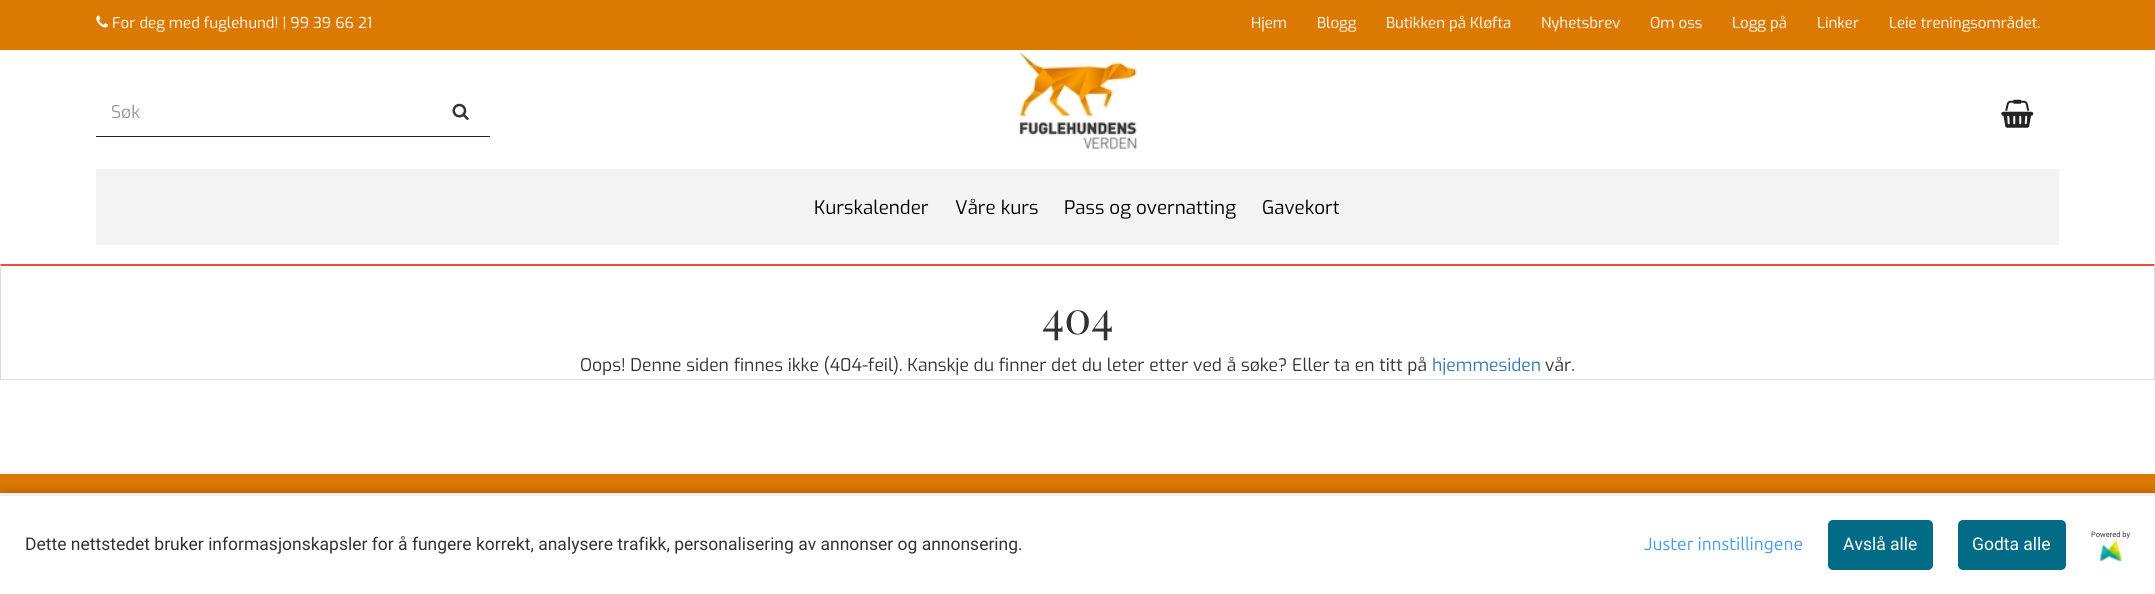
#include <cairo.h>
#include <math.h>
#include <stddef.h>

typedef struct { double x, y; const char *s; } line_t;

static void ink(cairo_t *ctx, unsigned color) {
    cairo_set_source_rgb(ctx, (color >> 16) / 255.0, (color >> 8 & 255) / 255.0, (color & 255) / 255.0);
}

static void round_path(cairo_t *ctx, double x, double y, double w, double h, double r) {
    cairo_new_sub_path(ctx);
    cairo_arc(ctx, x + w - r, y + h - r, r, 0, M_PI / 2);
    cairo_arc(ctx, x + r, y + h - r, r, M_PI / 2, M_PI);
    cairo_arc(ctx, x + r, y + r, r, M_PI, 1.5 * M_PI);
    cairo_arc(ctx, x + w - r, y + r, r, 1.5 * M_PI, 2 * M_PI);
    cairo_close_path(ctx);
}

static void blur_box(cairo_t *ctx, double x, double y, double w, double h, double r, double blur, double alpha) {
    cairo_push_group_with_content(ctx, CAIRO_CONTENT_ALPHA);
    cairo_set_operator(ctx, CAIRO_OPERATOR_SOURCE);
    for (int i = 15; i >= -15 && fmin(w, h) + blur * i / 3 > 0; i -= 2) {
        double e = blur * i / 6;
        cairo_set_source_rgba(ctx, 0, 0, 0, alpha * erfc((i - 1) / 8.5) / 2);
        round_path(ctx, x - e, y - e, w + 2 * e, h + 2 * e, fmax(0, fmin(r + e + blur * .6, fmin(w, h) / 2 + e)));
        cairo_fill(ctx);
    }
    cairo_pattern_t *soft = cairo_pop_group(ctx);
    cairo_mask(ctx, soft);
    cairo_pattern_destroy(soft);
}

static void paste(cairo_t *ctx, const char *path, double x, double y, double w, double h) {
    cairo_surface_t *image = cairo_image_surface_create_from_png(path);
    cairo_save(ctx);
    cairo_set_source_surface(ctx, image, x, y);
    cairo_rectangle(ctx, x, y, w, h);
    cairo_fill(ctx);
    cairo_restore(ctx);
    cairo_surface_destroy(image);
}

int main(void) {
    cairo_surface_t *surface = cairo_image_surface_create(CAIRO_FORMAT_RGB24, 2155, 594);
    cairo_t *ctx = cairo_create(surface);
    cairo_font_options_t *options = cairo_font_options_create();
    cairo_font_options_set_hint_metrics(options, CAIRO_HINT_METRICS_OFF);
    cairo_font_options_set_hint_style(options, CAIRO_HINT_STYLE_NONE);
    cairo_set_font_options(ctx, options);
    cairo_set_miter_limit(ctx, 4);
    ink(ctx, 0xFFFFFF);
    cairo_paint(ctx);
    ink(ctx, 0xDC7900);
    cairo_rectangle(ctx, 0, 0, 2155, 50);
    cairo_fill(ctx);
    paste(ctx, "media/1.png", 96, 15, 12, 13);
    cairo_select_font_face(ctx, "Exo", CAIRO_FONT_SLANT_NORMAL, CAIRO_FONT_WEIGHT_NORMAL);
    cairo_set_font_size(ctx, 15);
    ink(ctx, 0xFFFFFF);
    {
        static const line_t items[] = {
            {112, 28, "For deg med fuglehund! | 99 39 66 21"},
            {1251, 28, "Hjem"},
            {1317, 28, "Blogg"},
            {1386, 28, "Butikken på Kløfta"},
            {1541, 28, "Nyhetsbrev"},
            {1650, 28, "Om oss"},
            {1732, 28, "Logg på"},
            {1817, 28, "Linker"},
            {1889, 28, "Leie treningsområdet."},
        };
        for (size_t i = 0; i < sizeof items / sizeof *items; i++) {
            cairo_move_to(ctx, items[i].x, items[i].y);
            cairo_show_text(ctx, items[i].s);
        }
    }
    ink(ctx, 0x232323);
    cairo_rectangle(ctx, 96, 136, 394, 1);
    cairo_fill(ctx);
    cairo_set_font_size(ctx, 17.5);
    ink(ctx, 0x999999);
    cairo_move_to(ctx, 111, 118);
    cairo_show_text(ctx, "Søk");
    paste(ctx, "media/2.png", 452, 103, 17, 17);
    paste(ctx, "media/3.png", 1018, 50, 120, 99);
    paste(ctx, "media/4.png", 2001, 99, 33, 29);
    ink(ctx, 0xF3F3F3);
    cairo_rectangle(ctx, 96, 169, 1963, 76);
    cairo_fill(ctx);
    cairo_set_font_size(ctx, 18.75);
    ink(ctx, 0x000000);
    {
        static const line_t items[] = {
            {814, 214, "Kurskalender"},
            {955, 214, "Våre kurs"},
            {1064, 214, "Pass og overnatting"},
            {1262, 214, "Gavekort"},
        };
        for (size_t i = 0; i < sizeof items / sizeof *items; i++) {
            cairo_move_to(ctx, items[i].x, items[i].y);
            cairo_show_text(ctx, items[i].s);
        }
    }
    ink(ctx, 0xEE4A42);
    cairo_new_path(ctx);
    cairo_move_to(ctx, 0, 264);
    cairo_line_to(ctx, 2155, 264);
    cairo_line_to(ctx, 2154, 266);
    cairo_line_to(ctx, 1, 266);
    cairo_close_path(ctx);
    cairo_fill(ctx);
    ink(ctx, 0xDDDDDD);
    cairo_new_path(ctx);
    cairo_move_to(ctx, 2155, 264);
    cairo_line_to(ctx, 2155, 380);
    cairo_line_to(ctx, 2154, 379);
    cairo_line_to(ctx, 2154, 266);
    cairo_close_path(ctx);
    cairo_fill(ctx);
    cairo_rectangle(ctx, 0, 379, 2155, 1);
    cairo_fill(ctx);
    cairo_new_path(ctx);
    cairo_move_to(ctx, 0, 380);
    cairo_line_to(ctx, 0, 264);
    cairo_line_to(ctx, 1, 266);
    cairo_line_to(ctx, 1, 379);
    cairo_close_path(ctx);
    cairo_fill(ctx);
    cairo_select_font_face(ctx, "Playfair Display", CAIRO_FONT_SLANT_NORMAL, CAIRO_FONT_WEIGHT_NORMAL);
    cairo_set_font_size(ctx, 45);
    ink(ctx, 0x333333);
    cairo_move_to(ctx, 1042, 334);
    cairo_show_text(ctx, "404");
    cairo_select_font_face(ctx, "Exo", CAIRO_FONT_SLANT_NORMAL, CAIRO_FONT_WEIGHT_NORMAL);
    cairo_set_font_size(ctx, 17.5);
    cairo_move_to(ctx, 580, 371);
    cairo_show_text(ctx, "Oops! Denne siden finnes ikke (404-feil). Kanskje du finner det du leter etter ved å søke? Eller ta en titt på");
    ink(ctx, 0x337AB7);
    cairo_move_to(ctx, 1432, 371);
    cairo_show_text(ctx, "hjemmesiden");
    ink(ctx, 0x333333);
    cairo_move_to(ctx, 1545, 371);
    cairo_show_text(ctx, "vår.");
    ink(ctx, 0xDC7900);
    cairo_rectangle(ctx, 0, 474, 2155, 19);
    cairo_fill(ctx);
    ink(ctx, 0x000000);
    blur_box(ctx, 0, 493, 2155, 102, 0, 6, 0.25);
    ink(ctx, 0xFFFFFF);
    cairo_rectangle(ctx, 0, 496, 2155, 98);
    cairo_fill(ctx);
    ink(ctx, 0xEEEEEE);
    cairo_rectangle(ctx, 0, 493, 2155, 3);
    cairo_fill(ctx);
    cairo_select_font_face(ctx, "Roboto", CAIRO_FONT_SLANT_NORMAL, CAIRO_FONT_WEIGHT_NORMAL);
    ink(ctx, 0x333333);
    cairo_move_to(ctx, 25, 550);
    cairo_show_text(ctx, "Dette nettstedet bruker informasjonskapsler for å fungere korrekt, analysere trafikk, personalisering av annonser og annonsering.");
    cairo_select_font_face(ctx, "Ubuntu", CAIRO_FONT_SLANT_NORMAL, CAIRO_FONT_WEIGHT_NORMAL);
    ink(ctx, 0x409AEF);
    cairo_move_to(ctx, 1644, 550);
    cairo_show_text(ctx, "Juster innstillingene");
    cairo_select_font_face(ctx, "Roboto", CAIRO_FONT_SLANT_NORMAL, CAIRO_FONT_WEIGHT_NORMAL);
    cairo_set_font_size(ctx, 7.5);
    ink(ctx, 0x333333);
    cairo_move_to(ctx, 2091, 537);
    cairo_show_text(ctx, "Powered by");
    paste(ctx, "media/5.png", 2099, 539, 23, 23);
    ink(ctx, 0x026B85);
    round_path(ctx, 1828, 520, 105, 50, 5);
    cairo_fill(ctx);
    cairo_set_font_size(ctx, 17.5);
    ink(ctx, 0xFFFFFF);
    cairo_move_to(ctx, 1843, 550);
    cairo_show_text(ctx, "Avslå alle");
    ink(ctx, 0x026B85);
    round_path(ctx, 1958, 520, 108, 50, 5);
    cairo_fill(ctx);
    ink(ctx, 0xFFFFFF);
    cairo_move_to(ctx, 1972, 550);
    cairo_show_text(ctx, "Godta alle");
    cairo_surface_write_to_png(surface, "image.png");
    cairo_font_options_destroy(options);
    cairo_destroy(ctx);
    cairo_surface_destroy(surface);
    return 0;
}
